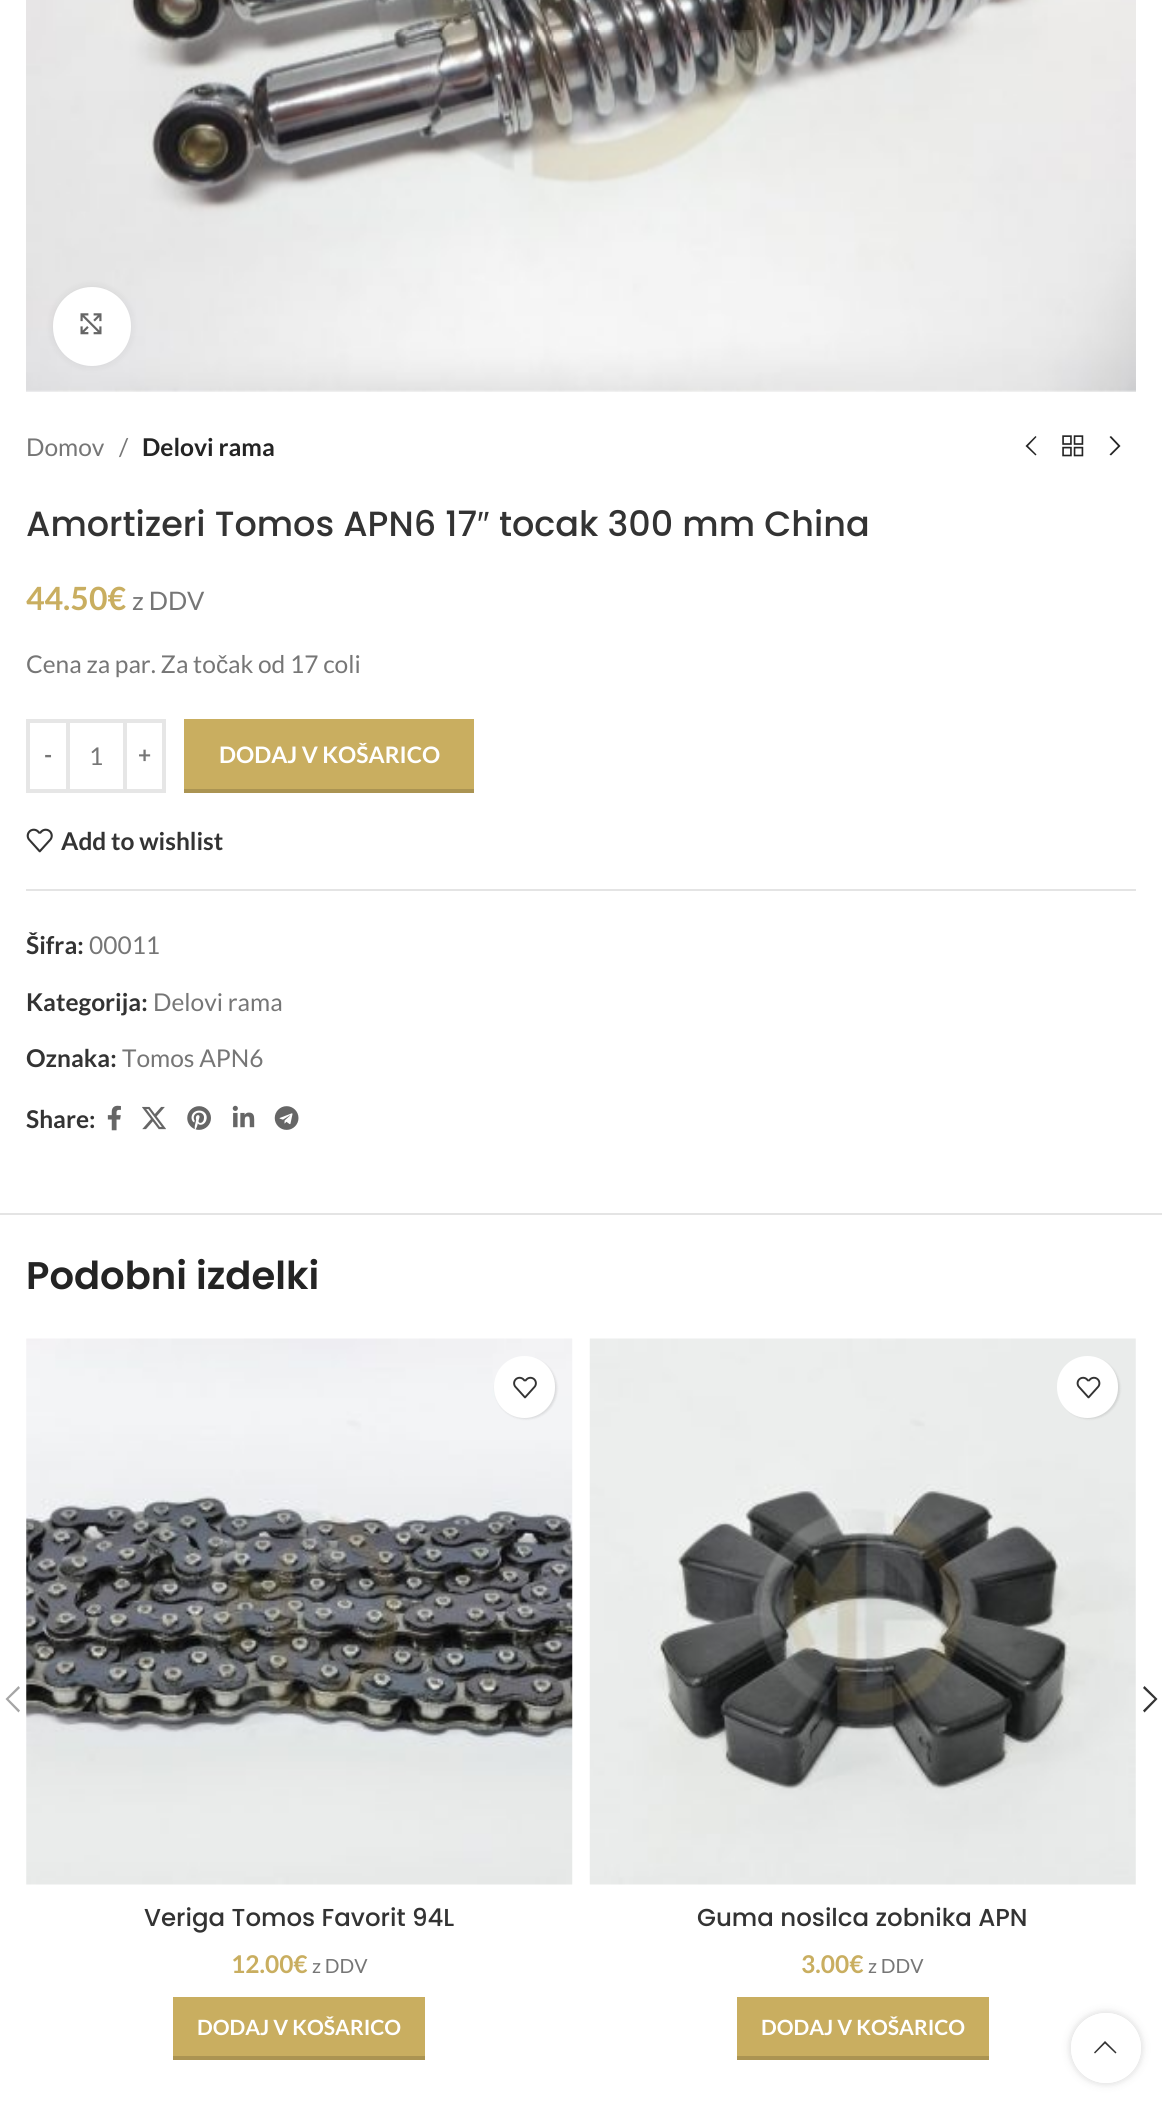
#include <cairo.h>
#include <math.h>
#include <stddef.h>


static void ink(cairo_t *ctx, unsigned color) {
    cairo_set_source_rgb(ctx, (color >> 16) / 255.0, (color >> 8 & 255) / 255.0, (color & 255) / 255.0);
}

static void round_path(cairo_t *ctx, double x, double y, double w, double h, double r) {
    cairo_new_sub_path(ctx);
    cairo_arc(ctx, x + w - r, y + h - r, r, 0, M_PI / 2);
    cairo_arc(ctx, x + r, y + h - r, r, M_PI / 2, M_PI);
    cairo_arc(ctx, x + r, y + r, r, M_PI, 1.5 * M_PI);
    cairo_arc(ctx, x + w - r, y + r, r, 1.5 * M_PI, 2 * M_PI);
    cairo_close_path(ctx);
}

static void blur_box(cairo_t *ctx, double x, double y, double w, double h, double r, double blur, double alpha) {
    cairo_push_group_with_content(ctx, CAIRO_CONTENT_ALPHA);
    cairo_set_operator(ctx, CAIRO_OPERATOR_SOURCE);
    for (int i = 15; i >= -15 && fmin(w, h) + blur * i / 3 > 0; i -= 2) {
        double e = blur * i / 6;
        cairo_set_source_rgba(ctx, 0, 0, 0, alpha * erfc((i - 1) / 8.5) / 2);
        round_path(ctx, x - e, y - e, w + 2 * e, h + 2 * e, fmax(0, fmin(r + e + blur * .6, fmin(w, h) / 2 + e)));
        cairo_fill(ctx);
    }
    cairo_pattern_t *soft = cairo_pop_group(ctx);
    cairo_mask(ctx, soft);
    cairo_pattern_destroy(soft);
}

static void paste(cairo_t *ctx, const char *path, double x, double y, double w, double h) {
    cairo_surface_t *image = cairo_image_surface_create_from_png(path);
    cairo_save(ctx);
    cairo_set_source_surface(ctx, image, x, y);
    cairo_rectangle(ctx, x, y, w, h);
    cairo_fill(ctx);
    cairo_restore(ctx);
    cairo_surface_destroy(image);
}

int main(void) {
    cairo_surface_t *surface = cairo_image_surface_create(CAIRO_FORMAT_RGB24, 1162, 2102);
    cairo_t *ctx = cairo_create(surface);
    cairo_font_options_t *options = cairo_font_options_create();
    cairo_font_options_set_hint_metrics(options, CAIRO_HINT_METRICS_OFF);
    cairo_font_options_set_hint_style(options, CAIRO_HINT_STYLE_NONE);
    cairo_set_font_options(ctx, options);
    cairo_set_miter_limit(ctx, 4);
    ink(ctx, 0xFFFFFF);
    cairo_paint(ctx);
    paste(ctx, "media/1.png", 26, 0, 1110, 392);
    ink(ctx, 0x000000);
    blur_box(ctx, 53, 287, 78, 79, 39, 4.5, 0.08);
    ink(ctx, 0xFFFFFF);
    round_path(ctx, 53, 287, 78, 79, 39);
    cairo_fill(ctx);
    paste(ctx, "media/2.png", 80, 313, 22, 22);
    cairo_select_font_face(ctx, "Lato", CAIRO_FONT_SLANT_NORMAL, CAIRO_FONT_WEIGHT_NORMAL);
    cairo_set_font_size(ctx, 24.5);
    ink(ctx, 0x767676);
    cairo_move_to(ctx, 26, 456);
    cairo_show_text(ctx, "Domov");
    cairo_move_to(ctx, 119, 456);
    cairo_show_text(ctx, "/");
    cairo_select_font_face(ctx, "Lato", CAIRO_FONT_SLANT_NORMAL, CAIRO_FONT_WEIGHT_BOLD);
    ink(ctx, 0x242424);
    cairo_move_to(ctx, 142, 456);
    cairo_show_text(ctx, "Delovi rama");
    cairo_new_path(ctx);
    cairo_move_to(ctx, 1036.5, 437);
    cairo_line_to(ctx, 1035.5, 436);
    cairo_line_to(ctx, 1025.5, 446);
    cairo_line_to(ctx, 1035.5, 455.5);
    cairo_line_to(ctx, 1036.5, 454.5);
    cairo_line_to(ctx, 1028, 446);
    cairo_close_path(ctx);
    cairo_fill(ctx);
    paste(ctx, "media/3.png", 1062, 435, 22, 22);
    cairo_new_path(ctx);
    cairo_move_to(ctx, 1109.5, 437);
    cairo_line_to(ctx, 1118, 446);
    cairo_line_to(ctx, 1109.5, 454.5);
    cairo_line_to(ctx, 1111, 455.5);
    cairo_line_to(ctx, 1120.5, 446);
    cairo_line_to(ctx, 1111, 436);
    cairo_close_path(ctx);
    cairo_fill(ctx);
    cairo_select_font_face(ctx, "Poppins Medium", CAIRO_FONT_SLANT_NORMAL, CAIRO_FONT_WEIGHT_NORMAL);
    cairo_set_font_size(ctx, 35);
    ink(ctx, 0x333333);
    cairo_move_to(ctx, 26, 536);
    cairo_show_text(ctx, "Amortizeri Tomos APN6 17");
    cairo_select_font_face(ctx, "Liberation Sans", CAIRO_FONT_SLANT_NORMAL, CAIRO_FONT_WEIGHT_NORMAL);
    cairo_move_to(ctx, 477, 536);
    cairo_show_text(ctx, "″");
    cairo_select_font_face(ctx, "Poppins Medium", CAIRO_FONT_SLANT_NORMAL, CAIRO_FONT_WEIGHT_NORMAL);
    cairo_move_to(ctx, 499, 536);
    cairo_show_text(ctx, "tocak 300 mm China");
    cairo_select_font_face(ctx, "Lato", CAIRO_FONT_SLANT_NORMAL, CAIRO_FONT_WEIGHT_BOLD);
    cairo_set_font_size(ctx, 32);
    ink(ctx, 0xC9AE60);
    cairo_move_to(ctx, 26, 610);
    cairo_show_text(ctx, "44.50€");
    cairo_select_font_face(ctx, "Lato", CAIRO_FONT_SLANT_NORMAL, CAIRO_FONT_WEIGHT_NORMAL);
    cairo_set_font_size(ctx, 25.5);
    ink(ctx, 0x767676);
    cairo_move_to(ctx, 132, 610);
    cairo_show_text(ctx, "z DDV");
    cairo_set_font_size(ctx, 24.5);
    cairo_move_to(ctx, 26, 673);
    cairo_show_text(ctx, "Cena za par. Za to");
    cairo_select_font_face(ctx, "Liberation Sans", CAIRO_FONT_SLANT_NORMAL, CAIRO_FONT_WEIGHT_NORMAL);
    cairo_move_to(ctx, 216, 673);
    cairo_show_text(ctx, "č");
    cairo_select_font_face(ctx, "Lato", CAIRO_FONT_SLANT_NORMAL, CAIRO_FONT_WEIGHT_NORMAL);
    cairo_move_to(ctx, 228, 673);
    cairo_show_text(ctx, "ak od 17 coli");
    cairo_rectangle(ctx, 28, 721, 40, 70);
    ink(ctx, 0xE6E6E6);
    cairo_set_line_width(ctx, 4);
    cairo_stroke(ctx);
    cairo_select_font_face(ctx, "Lato", CAIRO_FONT_SLANT_NORMAL, CAIRO_FONT_WEIGHT_BOLD);
    cairo_set_font_size(ctx, 22.75);
    ink(ctx, 0x767676);
    cairo_move_to(ctx, 44, 763);
    cairo_show_text(ctx, "-");
    ink(ctx, 0xE6E6E6);
    cairo_rectangle(ctx, 70, 719, 53, 4);
    cairo_fill(ctx);
    cairo_rectangle(ctx, 70, 789, 53, 4);
    cairo_fill(ctx);
    cairo_select_font_face(ctx, "Lato", CAIRO_FONT_SLANT_NORMAL, CAIRO_FONT_WEIGHT_NORMAL);
    cairo_set_font_size(ctx, 24.5);
    ink(ctx, 0x767676);
    cairo_move_to(ctx, 89, 765);
    cairo_show_text(ctx, "1");
    cairo_rectangle(ctx, 125, 721, 39, 70);
    ink(ctx, 0xE6E6E6);
    cairo_stroke(ctx);
    cairo_select_font_face(ctx, "Lato", CAIRO_FONT_SLANT_NORMAL, CAIRO_FONT_WEIGHT_BOLD);
    cairo_set_font_size(ctx, 22.75);
    ink(ctx, 0x767676);
    cairo_move_to(ctx, 138, 763);
    cairo_show_text(ctx, "+");
    ink(ctx, 0xC9AE60);
    cairo_rectangle(ctx, 184, 719, 290, 70);
    cairo_fill(ctx);
    ink(ctx, 0xAB9452);
    cairo_rectangle(ctx, 184, 789, 290, 4);
    cairo_fill(ctx);
    ink(ctx, 0xFFFFFF);
    cairo_move_to(ctx, 219, 763);
    cairo_show_text(ctx, "DODAJ V KOŠARICO");
    paste(ctx, "media/4.png", 26, 828, 27, 25);
    cairo_set_font_size(ctx, 24.5);
    ink(ctx, 0x333333);
    cairo_move_to(ctx, 61, 850);
    cairo_show_text(ctx, "Add to wishlist");
    ink(ctx, 0xE4E4E4);
    cairo_rectangle(ctx, 26, 889, 1110, 2);
    cairo_fill(ctx);
    ink(ctx, 0x333333);
    cairo_move_to(ctx, 26, 954);
    cairo_show_text(ctx, "Šifra:");
    cairo_select_font_face(ctx, "Lato", CAIRO_FONT_SLANT_NORMAL, CAIRO_FONT_WEIGHT_NORMAL);
    ink(ctx, 0x767676);
    cairo_move_to(ctx, 89, 954);
    cairo_show_text(ctx, "00011");
    cairo_select_font_face(ctx, "Lato", CAIRO_FONT_SLANT_NORMAL, CAIRO_FONT_WEIGHT_BOLD);
    ink(ctx, 0x333333);
    cairo_move_to(ctx, 26, 1011);
    cairo_show_text(ctx, "Kategorija:");
    cairo_select_font_face(ctx, "Lato", CAIRO_FONT_SLANT_NORMAL, CAIRO_FONT_WEIGHT_NORMAL);
    ink(ctx, 0x767676);
    cairo_move_to(ctx, 153, 1011);
    cairo_show_text(ctx, "Delovi rama");
    cairo_select_font_face(ctx, "Lato", CAIRO_FONT_SLANT_NORMAL, CAIRO_FONT_WEIGHT_BOLD);
    ink(ctx, 0x333333);
    cairo_move_to(ctx, 26, 1067);
    cairo_show_text(ctx, "Oznaka:");
    cairo_select_font_face(ctx, "Lato", CAIRO_FONT_SLANT_NORMAL, CAIRO_FONT_WEIGHT_NORMAL);
    ink(ctx, 0x767676);
    cairo_move_to(ctx, 122, 1067);
    cairo_show_text(ctx, "Tomos APN6");
    cairo_select_font_face(ctx, "Lato", CAIRO_FONT_SLANT_NORMAL, CAIRO_FONT_WEIGHT_BOLD);
    ink(ctx, 0x333333);
    cairo_move_to(ctx, 26, 1128);
    cairo_show_text(ctx, "Share:");
    paste(ctx, "media/5.png", 107, 1105, 14, 26);
    paste(ctx, "media/6.png", 142, 1106, 24, 24);
    paste(ctx, "media/7.png", 187, 1106, 24, 24);
    paste(ctx, "media/8.png", 232, 1105, 23, 23);
    paste(ctx, "media/9.png", 274, 1106, 25, 24);
    ink(ctx, 0xE4E4E4);
    cairo_rectangle(ctx, 0, 1213, 1162, 2);
    cairo_fill(ctx);
    cairo_select_font_face(ctx, "Poppins SemiBold", CAIRO_FONT_SLANT_NORMAL, CAIRO_FONT_WEIGHT_NORMAL);
    cairo_set_font_size(ctx, 38.5);
    ink(ctx, 0x242424);
    cairo_move_to(ctx, 26, 1289);
    cairo_show_text(ctx, "Podobni izdelki");
    ink(ctx, 0xA5A5A5);
    cairo_new_path(ctx);
    cairo_move_to(ctx, 20, 1688);
    cairo_line_to(ctx, 18.5, 1686);
    cairo_line_to(ctx, 5.5, 1699);
    cairo_line_to(ctx, 18.5, 1712.5);
    cairo_line_to(ctx, 20, 1710.5);
    cairo_line_to(ctx, 8.5, 1699);
    cairo_close_path(ctx);
    cairo_fill(ctx);
    ink(ctx, 0x333333);
    cairo_new_path(ctx);
    cairo_move_to(ctx, 1143, 1688);
    cairo_line_to(ctx, 1154.5, 1699);
    cairo_line_to(ctx, 1143, 1710.5);
    cairo_line_to(ctx, 1144.5, 1712.5);
    cairo_line_to(ctx, 1157.5, 1699);
    cairo_line_to(ctx, 1144.5, 1686);
    cairo_close_path(ctx);
    cairo_fill(ctx);
    paste(ctx, "media/10.png", 26, 1338, 547, 547);
    ink(ctx, 0x000000);
    blur_box(ctx, 495, 1358, 62, 61, 30.5, 1, 0.1);
    ink(ctx, 0xFFFFFF);
    round_path(ctx, 494, 1356, 61, 62, 30.5);
    cairo_fill(ctx);
    paste(ctx, "media/11.png", 513, 1376, 24, 23);
    cairo_select_font_face(ctx, "Poppins Medium", CAIRO_FONT_SLANT_NORMAL, CAIRO_FONT_WEIGHT_NORMAL);
    cairo_set_font_size(ctx, 24.5);
    ink(ctx, 0x333333);
    cairo_move_to(ctx, 144, 1926);
    cairo_show_text(ctx, "Veriga Tomos Favorit 94L");
    cairo_select_font_face(ctx, "Lato", CAIRO_FONT_SLANT_NORMAL, CAIRO_FONT_WEIGHT_BOLD);
    ink(ctx, 0xC9AE60);
    cairo_move_to(ctx, 231, 1973);
    cairo_show_text(ctx, "12.00€");
    cairo_select_font_face(ctx, "Lato", CAIRO_FONT_SLANT_NORMAL, CAIRO_FONT_WEIGHT_NORMAL);
    cairo_set_font_size(ctx, 19.5);
    ink(ctx, 0x767676);
    cairo_move_to(ctx, 312, 1973);
    cairo_show_text(ctx, "z DDV");
    ink(ctx, 0xC9AE60);
    cairo_rectangle(ctx, 173, 1997, 252, 59);
    cairo_fill(ctx);
    ink(ctx, 0xAB9452);
    cairo_rectangle(ctx, 173, 2056, 252, 4);
    cairo_fill(ctx);
    cairo_select_font_face(ctx, "Lato", CAIRO_FONT_SLANT_NORMAL, CAIRO_FONT_WEIGHT_BOLD);
    cairo_set_font_size(ctx, 21);
    ink(ctx, 0xFFFFFF);
    cairo_move_to(ctx, 197, 2035);
    cairo_show_text(ctx, "DODAJ V KOŠARICO");
    paste(ctx, "media/12.png", 589, 1338, 547, 547);
    ink(ctx, 0x000000);
    blur_box(ctx, 1059, 1358, 61, 61, 30.5, 1, 0.1);
    ink(ctx, 0xFFFFFF);
    round_path(ctx, 1057, 1356, 61, 62, 30.5);
    cairo_fill(ctx);
    paste(ctx, "media/13.png", 1076, 1376, 25, 23);
    cairo_select_font_face(ctx, "Poppins Medium", CAIRO_FONT_SLANT_NORMAL, CAIRO_FONT_WEIGHT_NORMAL);
    cairo_set_font_size(ctx, 24.5);
    ink(ctx, 0x333333);
    cairo_move_to(ctx, 697, 1926);
    cairo_show_text(ctx, "Guma nosilca zobnika APN");
    cairo_select_font_face(ctx, "Lato", CAIRO_FONT_SLANT_NORMAL, CAIRO_FONT_WEIGHT_BOLD);
    ink(ctx, 0xC9AE60);
    cairo_move_to(ctx, 801, 1973);
    cairo_show_text(ctx, "3.00€");
    cairo_select_font_face(ctx, "Lato", CAIRO_FONT_SLANT_NORMAL, CAIRO_FONT_WEIGHT_NORMAL);
    cairo_set_font_size(ctx, 19.5);
    ink(ctx, 0x767676);
    cairo_move_to(ctx, 868, 1973);
    cairo_show_text(ctx, "z DDV");
    ink(ctx, 0xC9AE60);
    cairo_rectangle(ctx, 737, 1997, 252, 59);
    cairo_fill(ctx);
    ink(ctx, 0xAB9452);
    cairo_rectangle(ctx, 737, 2056, 252, 4);
    cairo_fill(ctx);
    cairo_select_font_face(ctx, "Lato", CAIRO_FONT_SLANT_NORMAL, CAIRO_FONT_WEIGHT_BOLD);
    cairo_set_font_size(ctx, 21);
    ink(ctx, 0xFFFFFF);
    cairo_move_to(ctx, 761, 2035);
    cairo_show_text(ctx, "DODAJ V KOŠARICO");
    cairo_save(ctx);
    cairo_set_fill_rule(ctx, CAIRO_FILL_RULE_EVEN_ODD);
    cairo_new_path(ctx);
    cairo_move_to(ctx, 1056, 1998);
    cairo_line_to(ctx, 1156, 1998);
    cairo_line_to(ctx, 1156, 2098);
    cairo_line_to(ctx, 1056, 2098);
    cairo_close_path(ctx);
    cairo_move_to(ctx, 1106, 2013);
    cairo_curve_to(ctx, 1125.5, 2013, 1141, 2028.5, 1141, 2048);
    cairo_curve_to(ctx, 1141, 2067.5, 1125.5, 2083, 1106, 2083);
    cairo_curve_to(ctx, 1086.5, 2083, 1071, 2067.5, 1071, 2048);
    cairo_curve_to(ctx, 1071, 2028.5, 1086.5, 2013, 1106, 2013);
    cairo_close_path(ctx);
    cairo_clip(ctx);
    ink(ctx, 0x000000);
    blur_box(ctx, 1071, 2013, 70, 70, 35, 4.5, 0.17);
    cairo_restore(ctx);
    cairo_set_source_rgba(ctx, 1, 1, 1, 0.9);
    cairo_arc(ctx, 1106, 2048, 35, 0, 2 * M_PI);
    cairo_fill(ctx);
    ink(ctx, 0x333333);
    cairo_new_path(ctx);
    cairo_move_to(ctx, 1115.5, 2053.5);
    cairo_line_to(ctx, 1116.5, 2052.5);
    cairo_line_to(ctx, 1105, 2041);
    cairo_line_to(ctx, 1094, 2052.5);
    cairo_line_to(ctx, 1095, 2053.5);
    cairo_line_to(ctx, 1105, 2043.5);
    cairo_close_path(ctx);
    cairo_fill(ctx);
    cairo_surface_write_to_png(surface, "image.png");
    cairo_font_options_destroy(options);
    cairo_destroy(ctx);
    cairo_surface_destroy(surface);
    return 0;
}
